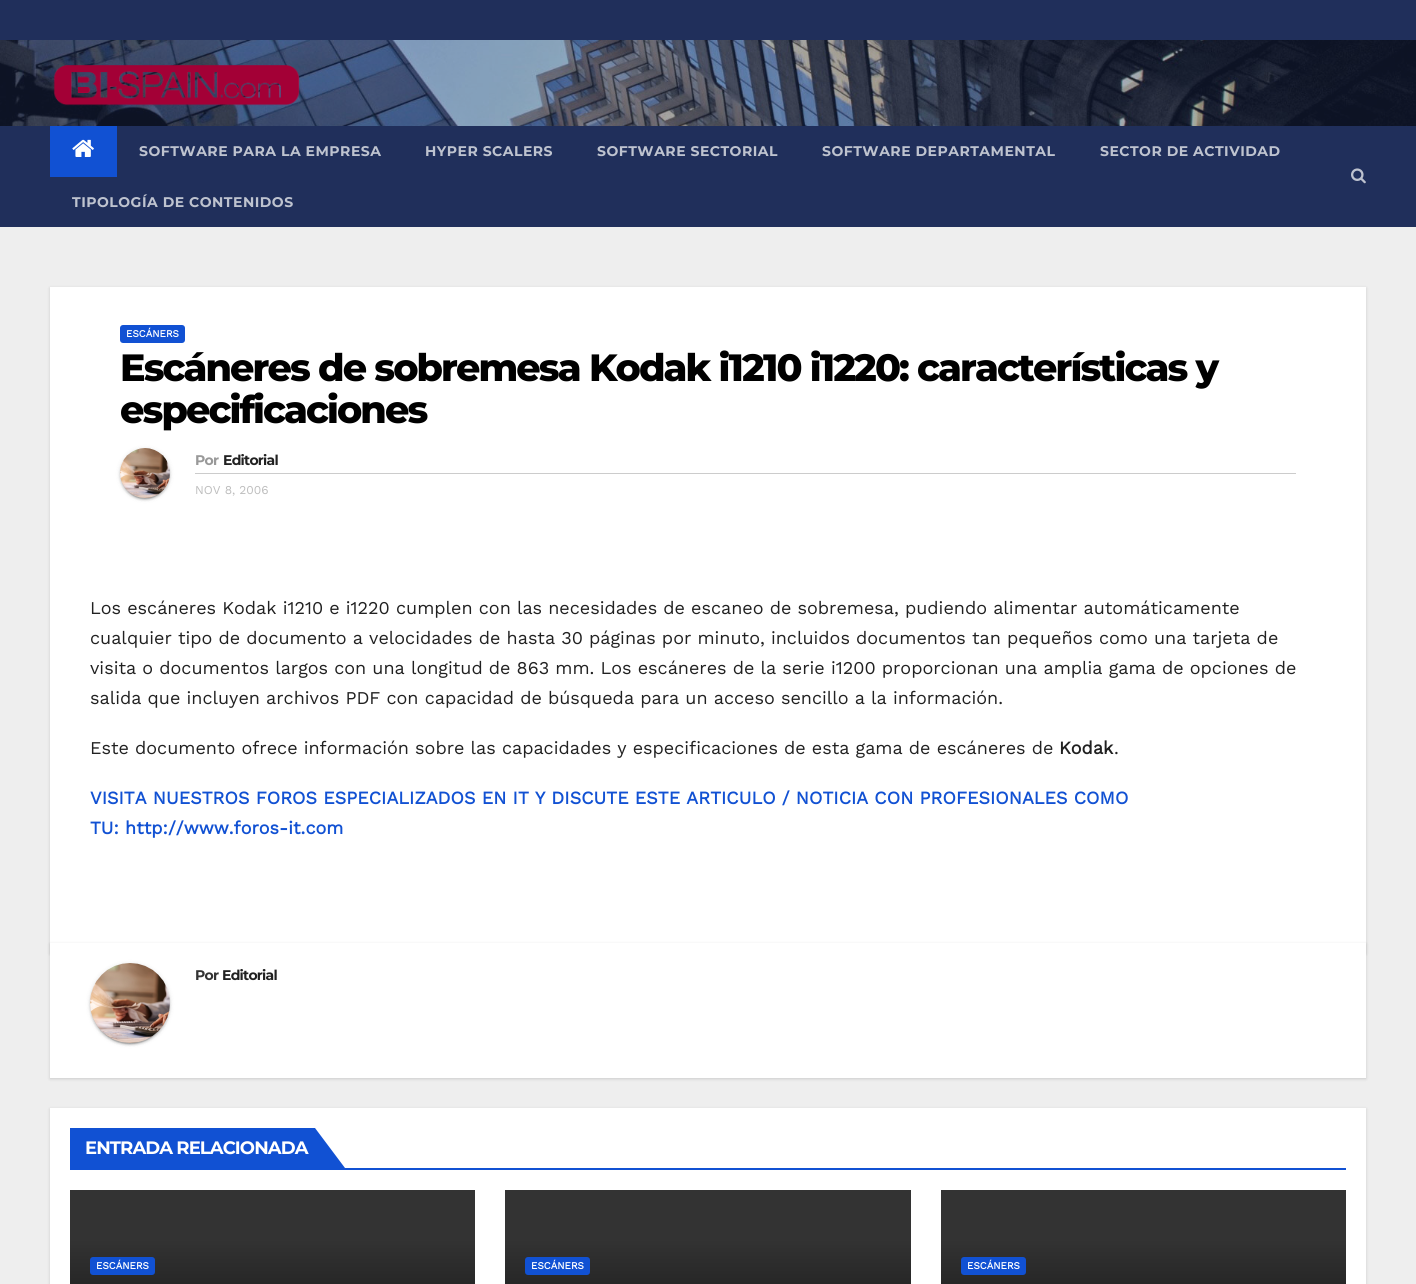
#include <cairo.h>
#include <math.h>
#include <stddef.h>

typedef struct { double x, y; const char *s; } line_t;
typedef struct { double x, y, w, h; unsigned color; } box_t;

static void ink(cairo_t *ctx, unsigned color) {
    cairo_set_source_rgb(ctx, (color >> 16) / 255.0, (color >> 8 & 255) / 255.0, (color & 255) / 255.0);
}

static void write_spaced(cairo_t *ctx, double x, double y, const char *s, double letter, double word) {
    cairo_move_to(ctx, x, y);
    while (*s) {
        char ch[5] = {0};
        int n = 0;
        do ch[n++] = *s++; while ((*s & 0xC0) == 0x80);
        cairo_show_text(ctx, ch);
        cairo_rel_move_to(ctx, letter + word * (*ch == ' '), 0);
    }
}

static void round_path(cairo_t *ctx, double x, double y, double w, double h, double r) {
    cairo_new_sub_path(ctx);
    cairo_arc(ctx, x + w - r, y + h - r, r, 0, M_PI / 2);
    cairo_arc(ctx, x + r, y + h - r, r, M_PI / 2, M_PI);
    cairo_arc(ctx, x + r, y + r, r, M_PI, 1.5 * M_PI);
    cairo_arc(ctx, x + w - r, y + r, r, 1.5 * M_PI, 2 * M_PI);
    cairo_close_path(ctx);
}

static void blur_box(cairo_t *ctx, double x, double y, double w, double h, double r, double blur, double alpha) {
    cairo_push_group_with_content(ctx, CAIRO_CONTENT_ALPHA);
    cairo_set_operator(ctx, CAIRO_OPERATOR_SOURCE);
    for (int i = 15; i >= -15 && fmin(w, h) + blur * i / 3 > 0; i -= 2) {
        double e = blur * i / 6;
        cairo_set_source_rgba(ctx, 0, 0, 0, alpha * erfc((i - 1) / 8.5) / 2);
        round_path(ctx, x - e, y - e, w + 2 * e, h + 2 * e, fmax(0, fmin(r + e + blur * .6, fmin(w, h) / 2 + e)));
        cairo_fill(ctx);
    }
    cairo_pattern_t *soft = cairo_pop_group(ctx);
    cairo_mask(ctx, soft);
    cairo_pattern_destroy(soft);
}

static void paste(cairo_t *ctx, const char *path, double x, double y, double w, double h) {
    cairo_surface_t *image = cairo_image_surface_create_from_png(path);
    cairo_save(ctx);
    cairo_set_source_surface(ctx, image, x, y);
    cairo_rectangle(ctx, x, y, w, h);
    cairo_fill(ctx);
    cairo_restore(ctx);
    cairo_surface_destroy(image);
}

int main(void) {
    cairo_surface_t *surface = cairo_image_surface_create(CAIRO_FORMAT_RGB24, 1416, 1284);
    cairo_t *ctx = cairo_create(surface);
    cairo_font_options_t *options = cairo_font_options_create();
    cairo_font_options_set_hint_metrics(options, CAIRO_HINT_METRICS_OFF);
    cairo_font_options_set_hint_style(options, CAIRO_HINT_STYLE_NONE);
    cairo_set_font_options(ctx, options);
    cairo_set_miter_limit(ctx, 4);
    cairo_pattern_t *gradient;
    ink(ctx, 0xEEEEEE);
    cairo_paint(ctx);
    ink(ctx, 0x202F5B);
    cairo_rectangle(ctx, 0, 0, 1416, 40);
    cairo_fill(ctx);
    paste(ctx, "media/1.png", 0, 40, 1416, 86);
    paste(ctx, "media/2.png", 53, 65, 247, 41);
    cairo_rectangle(ctx, 0, 126, 1416, 101);
    cairo_fill(ctx);
    ink(ctx, 0x1151D3);
    cairo_rectangle(ctx, 50, 126, 67, 51);
    cairo_fill(ctx);
    paste(ctx, "media/3.png", 72, 139, 22, 18);
    cairo_select_font_face(ctx, "Montserrat", CAIRO_FONT_SLANT_NORMAL, CAIRO_FONT_WEIGHT_BOLD);
    cairo_set_font_size(ctx, 14);
    ink(ctx, 0xBEC3CF);
    {
        static const line_t items[] = {
            {139, 156, "SOFTWARE PARA LA EMPRESA"},
            {425, 156, "HYPER SCALERS"},
            {597, 156, "SOFTWARE SECTORIAL"},
            {822, 156, "SOFTWARE DEPARTAMENTAL"},
            {1100, 156, "SECTOR DE ACTIVIDAD"},
            {72, 207, "TIPOLOGÍA DE CONTENIDOS"},
        };
        for (size_t i = 0; i < sizeof items / sizeof *items; i++) {
            write_spaced(ctx, items[i].x, items[i].y, items[i].s, 0.5, 0);
        }
    }
    paste(ctx, "media/4.png", 1351, 168, 15, 16);
    ink(ctx, 0x000000);
    blur_box(ctx, 50, 288, 1316, 666, 0, 1.5, 0.15);
    ink(ctx, 0xFFFFFF);
    cairo_rectangle(ctx, 50, 287, 1316, 656);
    cairo_fill(ctx);
    ink(ctx, 0x1151D3);
    round_path(ctx, 120, 325, 65, 18, 3);
    cairo_fill(ctx);
    cairo_select_font_face(ctx, "Work Sans", CAIRO_FONT_SLANT_NORMAL, CAIRO_FONT_WEIGHT_BOLD);
    cairo_set_font_size(ctx, 10);
    ink(ctx, 0xFFFFFF);
    cairo_move_to(ctx, 126, 337);
    cairo_show_text(ctx, "ESCÁNERS");
    cairo_select_font_face(ctx, "Montserrat ExtraBold", CAIRO_FONT_SLANT_NORMAL, CAIRO_FONT_WEIGHT_NORMAL);
    cairo_set_font_size(ctx, 38);
    ink(ctx, 0x000000);
    write_spaced(ctx, 120, 381, "Escáneres de sobremesa Kodak i1210 i1220: características y", -1.9, 0);
    write_spaced(ctx, 120, 423, "especificaciones", -1.9, 0);
    ink(ctx, 0x000000);
    blur_box(ctx, 120, 449, 50, 50, 25, 2.5, 0.12);
    blur_box(ctx, 122, 453, 46, 46, 23, 0.5, 0.2);
    blur_box(ctx, 120, 450, 50, 50, 25, 1, 0.14);
    paste(ctx, "media/5.png", 120, 448, 50, 50);
    ink(ctx, 0xCCCCCC);
    cairo_rectangle(ctx, 195, 473, 1101, 1);
    cairo_fill(ctx);
    cairo_select_font_face(ctx, "Montserrat", CAIRO_FONT_SLANT_NORMAL, CAIRO_FONT_WEIGHT_BOLD);
    cairo_set_font_size(ctx, 14);
    ink(ctx, 0x999999);
    write_spaced(ctx, 195, 465, "Por", -0.75, 0);
    ink(ctx, 0x212121);
    write_spaced(ctx, 223, 465, "Editorial", -0.75, 0);
    cairo_select_font_face(ctx, "Work Sans", CAIRO_FONT_SLANT_NORMAL, CAIRO_FONT_WEIGHT_NORMAL);
    cairo_set_font_size(ctx, 12);
    ink(ctx, 0xBDBDBD);
    cairo_move_to(ctx, 195, 494);
    cairo_show_text(ctx, "NOV 8, 2006");
    cairo_set_font_size(ctx, 18);
    ink(ctx, 0x212121);
    {
        static const line_t items[] = {
            {90, 614, "Los escáneres Kodak i1210 e i1220 cumplen con las necesidades de escaneo de sobremesa, pudiendo alimentar automáticamente"},
            {90, 644, "cualquier tipo de documento a velocidades de hasta 30 páginas por minuto, incluidos documentos tan pequeños como una tarjeta de"},
            {90, 674, "visita o documentos largos con una longitud de 863 mm. Los escáneres de la serie i1200 proporcionan una amplia gama de opciones de"},
            {90, 704, "salida que incluyen archivos PDF con capacidad de búsqueda para un acceso sencillo a la información."},
            {90, 754, "Este documento ofrece información sobre las capacidades y especificaciones de esta gama de escáneres de"},
        };
        for (size_t i = 0; i < sizeof items / sizeof *items; i++) {
            cairo_move_to(ctx, items[i].x, items[i].y);
            cairo_show_text(ctx, items[i].s);
        }
    }
    cairo_select_font_face(ctx, "Work Sans", CAIRO_FONT_SLANT_NORMAL, CAIRO_FONT_WEIGHT_BOLD);
    cairo_move_to(ctx, 1059, 754);
    cairo_show_text(ctx, "Kodak");
    cairo_select_font_face(ctx, "Work Sans", CAIRO_FONT_SLANT_NORMAL, CAIRO_FONT_WEIGHT_NORMAL);
    cairo_move_to(ctx, 1114, 754);
    cairo_show_text(ctx, ".");
    cairo_select_font_face(ctx, "Work Sans", CAIRO_FONT_SLANT_NORMAL, CAIRO_FONT_WEIGHT_BOLD);
    ink(ctx, 0x1151D3);
    cairo_move_to(ctx, 90, 804);
    cairo_show_text(ctx, "VISITA NUESTROS FOROS ESPECIALIZADOS EN IT Y DISCUTE ESTE ARTICULO / NOTICIA CON PROFESIONALES COMO");
    cairo_move_to(ctx, 90, 834);
    cairo_show_text(ctx, "TU: http://www.foros-it.com");
    ink(ctx, 0x000000);
    blur_box(ctx, 50, 944, 1316, 135, 0, 1.5, 0.15);
    ink(ctx, 0xFFFFFF);
    cairo_rectangle(ctx, 50, 943, 1316, 135);
    cairo_fill(ctx);
    ink(ctx, 0x000000);
    blur_box(ctx, 90, 964, 80, 80, 40, 2.5, 0.12);
    blur_box(ctx, 92, 968, 76, 76, 38, 0.5, 0.2);
    blur_box(ctx, 90, 965, 80, 80, 40, 1, 0.14);
    paste(ctx, "media/6.png", 90, 963, 80, 80);
    cairo_select_font_face(ctx, "Montserrat", CAIRO_FONT_SLANT_NORMAL, CAIRO_FONT_WEIGHT_BOLD);
    cairo_set_font_size(ctx, 14);
    ink(ctx, 0x333333);
    write_spaced(ctx, 195, 980, "Por", -0.75, 0);
    ink(ctx, 0x212121);
    write_spaced(ctx, 222, 980, "Editorial", -0.75, 0);
    ink(ctx, 0x000000);
    blur_box(ctx, 50, 1109, 1316, 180, 0, 1.5, 0.15);
    {
        static const box_t items[] = {
            {50, 1108, 1316, 176, 0xFFFFFF},
            {70, 1168, 1276, 2, 0x1151D3},
            {70, 1128, 245, 40, 0x1151D3},
        };
        for (size_t i = 0; i < sizeof items / sizeof *items; i++) {
            ink(ctx, items[i].color);
            cairo_rectangle(ctx, items[i].x, items[i].y, items[i].w, items[i].h);
            cairo_fill(ctx);
        }
    }
    cairo_set_font_size(ctx, 18);
    ink(ctx, 0xFFFFFF);
    write_spaced(ctx, 85, 1154, "ENTRADA RELACIONADA", -0.9, 0);
    ink(ctx, 0x1151D3);
    cairo_new_path(ctx);
    cairo_move_to(ctx, 315, 1168);
    cairo_line_to(ctx, 315, 1128);
    cairo_line_to(ctx, 345, 1168);
    cairo_close_path(ctx);
    cairo_fill(ctx);
    ink(ctx, 0x333333);
    cairo_rectangle(ctx, 70, 1190, 405, 49);
    cairo_fill(ctx);
    gradient = cairo_pattern_create_linear(273, 1239, 273, 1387);
    cairo_pattern_add_color_stop_rgba(gradient, 0, 0.2, 0.2, 0.2, 1);
    cairo_pattern_add_color_stop_rgba(gradient, 0.5, 0.122, 0.122, 0.122, 1);
    cairo_pattern_add_color_stop_rgba(gradient, 1, 0.059, 0.059, 0.059, 1);
    cairo_set_source(ctx, gradient);
    cairo_pattern_destroy(gradient);
    cairo_rectangle(ctx, 70, 1239, 405, 45);
    cairo_fill(ctx);
    ink(ctx, 0x1151D3);
    round_path(ctx, 90, 1257, 65, 18, 3);
    cairo_fill(ctx);
    cairo_select_font_face(ctx, "Work Sans", CAIRO_FONT_SLANT_NORMAL, CAIRO_FONT_WEIGHT_BOLD);
    cairo_set_font_size(ctx, 10);
    ink(ctx, 0xFFFFFF);
    cairo_move_to(ctx, 96, 1269);
    cairo_show_text(ctx, "ESCÁNERS");
    ink(ctx, 0x333333);
    cairo_rectangle(ctx, 505, 1190, 406, 49);
    cairo_fill(ctx);
    gradient = cairo_pattern_create_linear(708, 1239, 708, 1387);
    cairo_pattern_add_color_stop_rgba(gradient, 0, 0.2, 0.2, 0.2, 1);
    cairo_pattern_add_color_stop_rgba(gradient, 0.5, 0.122, 0.122, 0.122, 1);
    cairo_pattern_add_color_stop_rgba(gradient, 1, 0.059, 0.059, 0.059, 1);
    cairo_set_source(ctx, gradient);
    cairo_pattern_destroy(gradient);
    cairo_rectangle(ctx, 505, 1239, 406, 45);
    cairo_fill(ctx);
    ink(ctx, 0x1151D3);
    round_path(ctx, 525, 1257, 65, 18, 3);
    cairo_fill(ctx);
    ink(ctx, 0xFFFFFF);
    cairo_move_to(ctx, 531, 1269);
    cairo_show_text(ctx, "ESCÁNERS");
    ink(ctx, 0x333333);
    cairo_rectangle(ctx, 941, 1190, 405, 49);
    cairo_fill(ctx);
    gradient = cairo_pattern_create_linear(1144, 1239, 1144, 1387);
    cairo_pattern_add_color_stop_rgba(gradient, 0, 0.2, 0.2, 0.2, 1);
    cairo_pattern_add_color_stop_rgba(gradient, 0.5, 0.122, 0.122, 0.122, 1);
    cairo_pattern_add_color_stop_rgba(gradient, 1, 0.059, 0.059, 0.059, 1);
    cairo_set_source(ctx, gradient);
    cairo_pattern_destroy(gradient);
    cairo_rectangle(ctx, 941, 1239, 405, 45);
    cairo_fill(ctx);
    ink(ctx, 0x1151D3);
    round_path(ctx, 961, 1257, 65, 18, 3);
    cairo_fill(ctx);
    ink(ctx, 0xFFFFFF);
    cairo_move_to(ctx, 967, 1269);
    cairo_show_text(ctx, "ESCÁNERS");
    cairo_surface_write_to_png(surface, "image.png");
    cairo_font_options_destroy(options);
    cairo_destroy(ctx);
    cairo_surface_destroy(surface);
    return 0;
}
